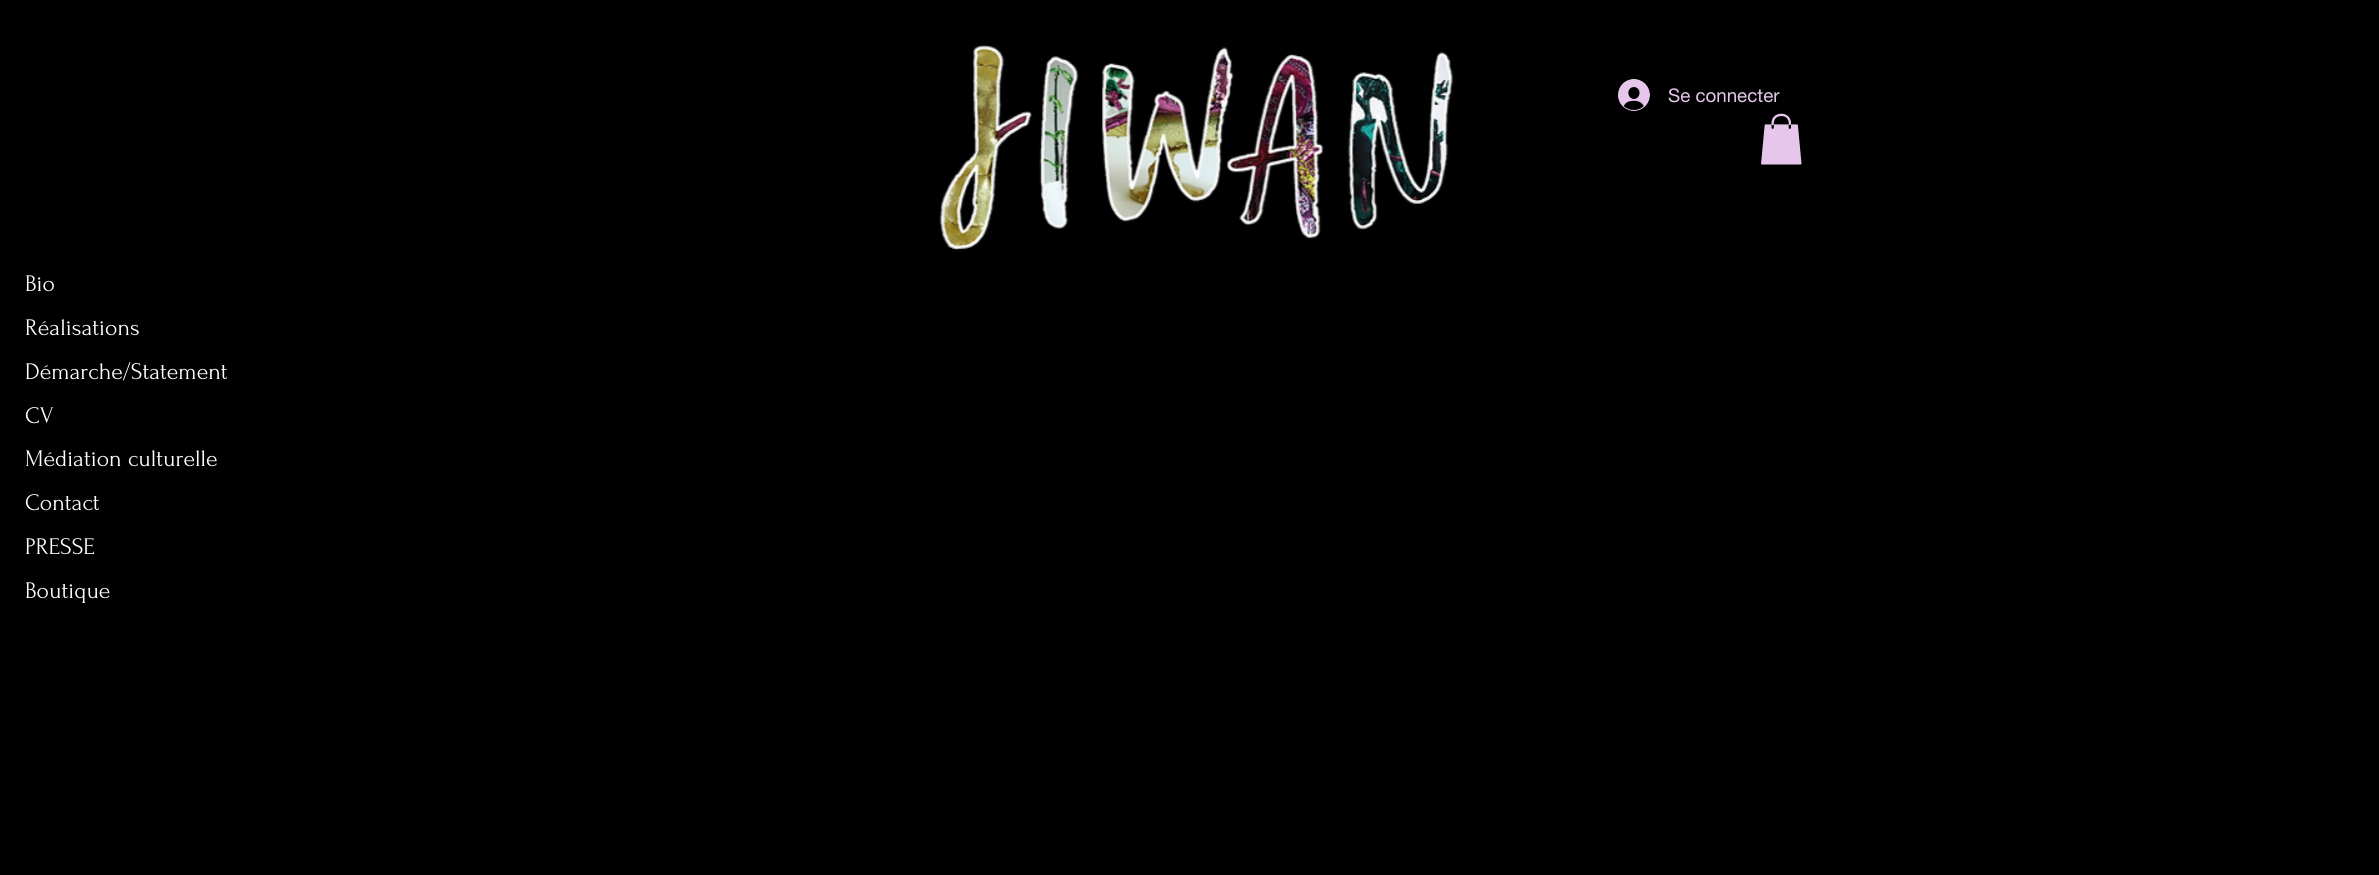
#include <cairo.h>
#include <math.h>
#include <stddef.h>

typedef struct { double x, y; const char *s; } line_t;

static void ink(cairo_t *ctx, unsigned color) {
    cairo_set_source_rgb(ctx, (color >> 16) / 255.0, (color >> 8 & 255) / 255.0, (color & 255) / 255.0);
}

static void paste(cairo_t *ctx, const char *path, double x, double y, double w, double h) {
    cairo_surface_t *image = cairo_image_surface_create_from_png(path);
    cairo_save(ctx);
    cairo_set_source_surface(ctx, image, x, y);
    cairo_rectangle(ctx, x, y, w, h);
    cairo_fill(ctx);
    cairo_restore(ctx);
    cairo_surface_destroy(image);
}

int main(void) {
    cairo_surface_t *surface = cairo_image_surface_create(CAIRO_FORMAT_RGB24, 2379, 875);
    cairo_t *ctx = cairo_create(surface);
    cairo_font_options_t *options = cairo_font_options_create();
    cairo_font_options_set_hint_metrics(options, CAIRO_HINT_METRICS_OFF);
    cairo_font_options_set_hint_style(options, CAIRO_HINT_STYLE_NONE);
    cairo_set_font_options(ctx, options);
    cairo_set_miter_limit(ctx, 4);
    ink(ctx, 0x000000);
    cairo_paint(ctx);
    paste(ctx, "media/1.png", 939, 45, 515, 205);
    paste(ctx, "media/2.png", 1618, 79, 32, 32);
    cairo_select_font_face(ctx, "helvetica neue", CAIRO_FONT_SLANT_NORMAL, CAIRO_FONT_WEIGHT_NORMAL);
    cairo_set_font_size(ctx, 18.75);
    ink(ctx, 0xE6C7EB);
    cairo_move_to(ctx, 1668, 102);
    cairo_show_text(ctx, "Se connecter");
    paste(ctx, "media/3.png", 1761, 113, 41, 52);
    cairo_select_font_face(ctx, "Forum", CAIRO_FONT_SLANT_NORMAL, CAIRO_FONT_WEIGHT_NORMAL);
    cairo_set_font_size(ctx, 23.75);
    ink(ctx, 0xFFFFFF);
    {
        static const line_t items[] = {
            {25, 291, "Bio"},
            {25, 335, "Réalisations"},
            {25, 379, "Démarche/Statement"},
            {25, 423, "CV"},
            {25, 466, "Médiation culturelle"},
            {25, 510, "Contact"},
            {25, 554, "PRESSE"},
            {25, 598, "Boutique"},
        };
        for (size_t i = 0; i < sizeof items / sizeof *items; i++) {
            cairo_move_to(ctx, items[i].x, items[i].y);
            cairo_show_text(ctx, items[i].s);
        }
    }
    cairo_surface_write_to_png(surface, "image.png");
    cairo_font_options_destroy(options);
    cairo_destroy(ctx);
    cairo_surface_destroy(surface);
    return 0;
}
